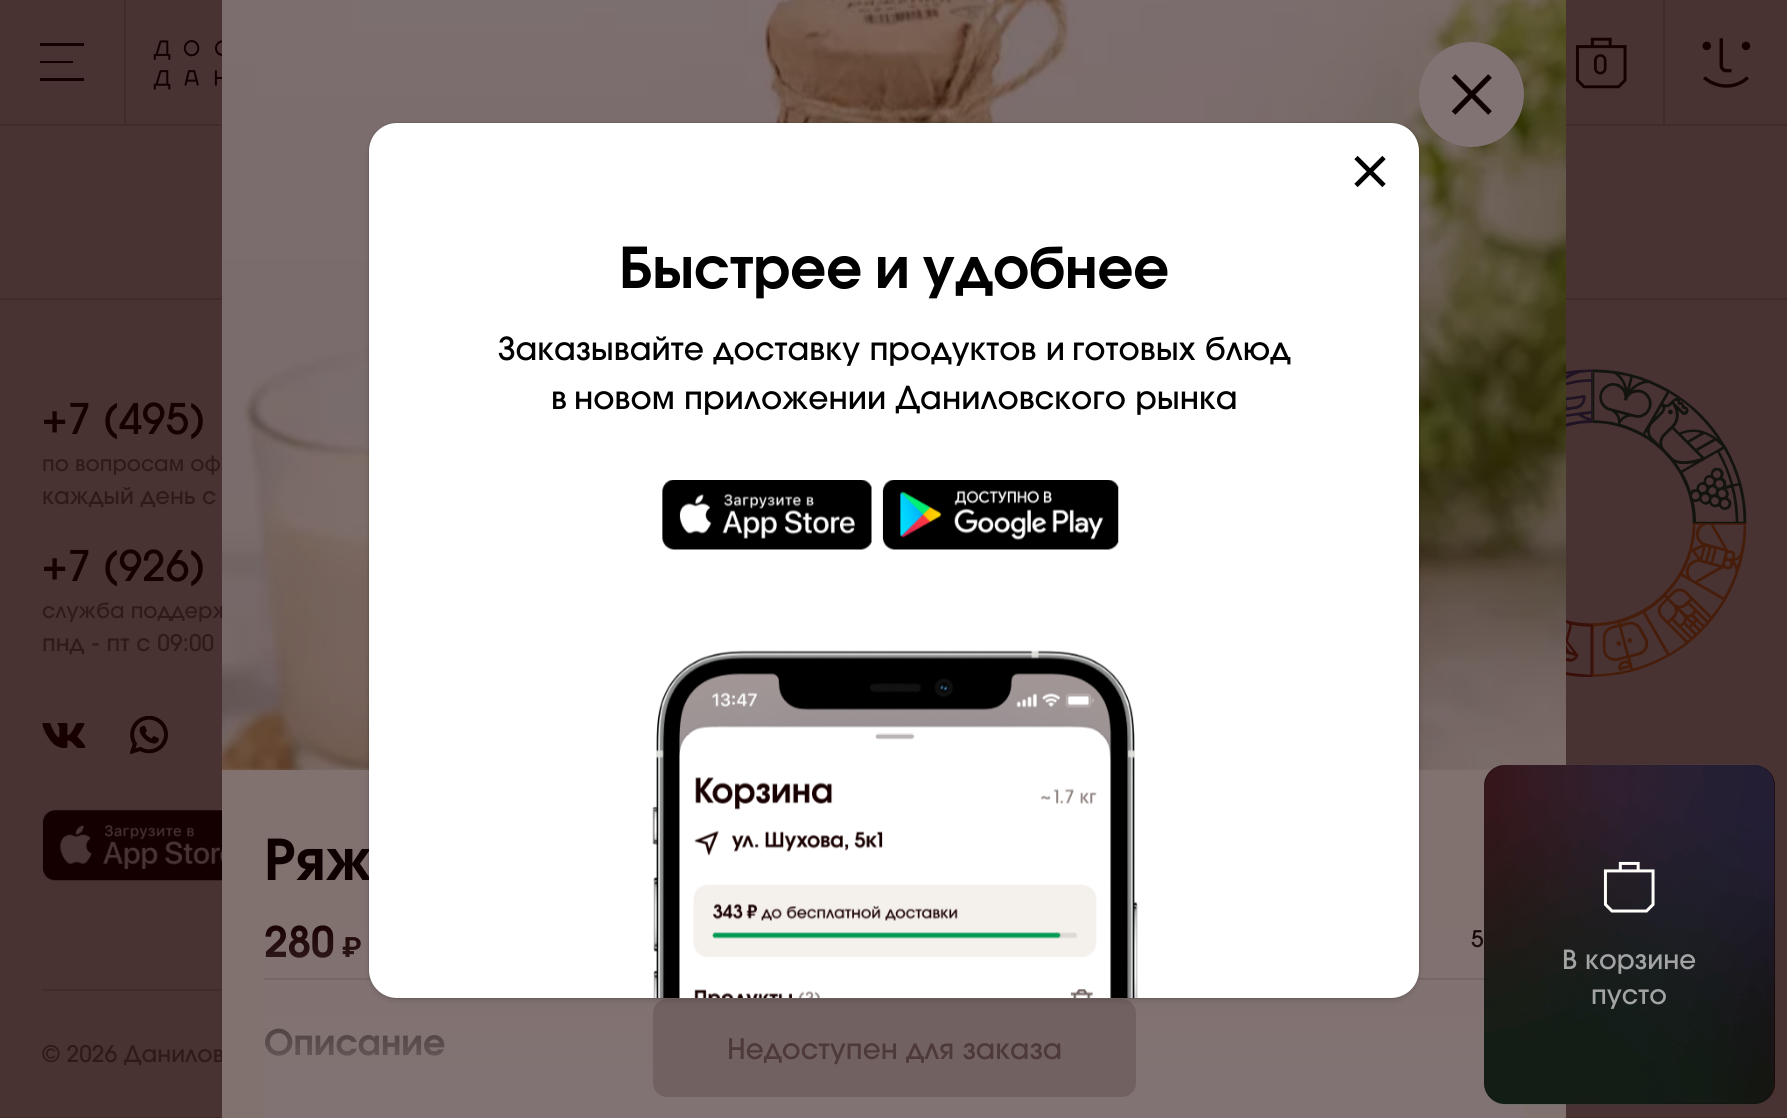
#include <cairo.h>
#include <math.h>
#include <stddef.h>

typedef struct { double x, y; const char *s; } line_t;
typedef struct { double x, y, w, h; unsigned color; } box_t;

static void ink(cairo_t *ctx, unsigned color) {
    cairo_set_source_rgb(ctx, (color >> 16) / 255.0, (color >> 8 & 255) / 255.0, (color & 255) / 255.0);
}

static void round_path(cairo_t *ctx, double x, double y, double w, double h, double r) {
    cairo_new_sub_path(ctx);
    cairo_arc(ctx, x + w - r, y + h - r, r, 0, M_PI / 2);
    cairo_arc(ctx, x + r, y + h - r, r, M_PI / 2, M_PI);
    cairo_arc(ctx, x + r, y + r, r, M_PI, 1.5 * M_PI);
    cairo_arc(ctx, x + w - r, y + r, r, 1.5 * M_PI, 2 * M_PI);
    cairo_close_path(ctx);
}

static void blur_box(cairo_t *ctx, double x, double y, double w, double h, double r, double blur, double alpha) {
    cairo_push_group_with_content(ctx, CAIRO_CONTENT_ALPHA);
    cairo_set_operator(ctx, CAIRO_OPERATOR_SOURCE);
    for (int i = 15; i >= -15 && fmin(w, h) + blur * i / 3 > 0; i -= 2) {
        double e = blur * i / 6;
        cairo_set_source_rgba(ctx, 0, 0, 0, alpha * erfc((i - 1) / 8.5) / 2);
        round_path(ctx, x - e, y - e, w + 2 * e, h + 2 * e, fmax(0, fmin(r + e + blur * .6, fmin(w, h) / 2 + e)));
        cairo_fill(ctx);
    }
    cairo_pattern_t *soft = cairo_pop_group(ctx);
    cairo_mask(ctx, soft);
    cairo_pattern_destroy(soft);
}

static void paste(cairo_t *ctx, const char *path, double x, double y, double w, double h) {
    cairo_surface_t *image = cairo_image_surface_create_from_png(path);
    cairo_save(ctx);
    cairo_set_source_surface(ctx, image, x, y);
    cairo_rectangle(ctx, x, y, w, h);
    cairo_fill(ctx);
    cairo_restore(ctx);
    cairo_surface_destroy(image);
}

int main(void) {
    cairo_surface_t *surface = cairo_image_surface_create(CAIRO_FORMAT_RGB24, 1787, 1118);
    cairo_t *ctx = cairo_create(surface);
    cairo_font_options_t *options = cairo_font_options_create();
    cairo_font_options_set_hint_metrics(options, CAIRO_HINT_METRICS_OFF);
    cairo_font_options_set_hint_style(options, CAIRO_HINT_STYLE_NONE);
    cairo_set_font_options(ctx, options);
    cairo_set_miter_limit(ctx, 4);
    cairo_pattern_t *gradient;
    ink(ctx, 0x483332);
    cairo_paint(ctx);
    {
        static const box_t items[] = {
            {0, 1117, 1787, 1, 0x412C2B},
            {0, 124, 1787, 2, 0x412C2B},
            {124, 0, 2, 124, 0x412C2B},
            {40, 43, 44, 3, 0x140000},
            {40, 61, 33, 2, 0x140000},
            {40, 78, 44, 3, 0x140000},
        };
        for (size_t i = 0; i < sizeof items / sizeof *items; i++) {
            ink(ctx, items[i].color);
            cairo_rectangle(ctx, items[i].x, items[i].y, items[i].w, items[i].h);
            cairo_fill(ctx);
        }
    }
    paste(ctx, "media/1.png", 153, 40, 69, 50);
    paste(ctx, "media/2.png", 1575, 37, 52, 52);
    cairo_select_font_face(ctx, "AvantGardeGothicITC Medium", CAIRO_FONT_SLANT_NORMAL, CAIRO_FONT_WEIGHT_NORMAL);
    cairo_set_font_size(ctx, 26.25);
    ink(ctx, 0x190000);
    cairo_move_to(ctx, 1593, 74);
    cairo_show_text(ctx, "0");
    ink(ctx, 0x412C2B);
    cairo_rectangle(ctx, 1663, 0, 2, 124);
    cairo_fill(ctx);
    paste(ctx, "media/3.png", 1702, 38, 49, 50);
    cairo_rectangle(ctx, 0, 298, 1787, 2);
    cairo_fill(ctx);
    cairo_set_font_size(ctx, 42);
    ink(ctx, 0x190000);
    cairo_move_to(ctx, 42, 434);
    cairo_show_text(ctx, "+7 (495)");
    cairo_set_font_size(ctx, 21);
    ink(ctx, 0x301A19);
    cairo_move_to(ctx, 42, 471);
    cairo_show_text(ctx, "по вопросам оф");
    cairo_set_font_size(ctx, 22.75);
    cairo_move_to(ctx, 42, 504);
    cairo_show_text(ctx, "каждый день с");
    cairo_set_font_size(ctx, 42);
    ink(ctx, 0x190000);
    cairo_move_to(ctx, 42, 581);
    cairo_show_text(ctx, "+7 (926)");
    cairo_set_font_size(ctx, 21);
    ink(ctx, 0x301A19);
    cairo_move_to(ctx, 42, 618);
    cairo_show_text(ctx, "cлужба поддерж");
    cairo_set_font_size(ctx, 22.75);
    cairo_move_to(ctx, 42, 651);
    cairo_show_text(ctx, "пнд - пт c 09:00");
    paste(ctx, "media/4.png", 42, 723, 44, 25);
    paste(ctx, "media/5.png", 130, 716, 38, 38);
    paste(ctx, "media/6.png", 42, 810, 180, 71);
    paste(ctx, "media/7.png", 1566, 369, 181, 308);
    ink(ctx, 0x412C2B);
    cairo_rectangle(ctx, 42, 989, 180, 2);
    cairo_fill(ctx);
    ink(ctx, 0x301A19);
    cairo_move_to(ctx, 42, 1062);
    cairo_show_text(ctx, "© 2026 Данилов");
    ink(ctx, 0x817270);
    cairo_rectangle(ctx, 222, 767, 1344, 351);
    cairo_fill(ctx);
    paste(ctx, "media/8.png", 222, 0, 1344, 770);
    ink(ctx, 0x817373);
    cairo_arc(ctx, 1471.5, 94.5, 52.5, 0, 2 * M_PI);
    cairo_fill(ctx);
    cairo_new_path(ctx);
    cairo_move_to(ctx, 1453.5, 76);
    cairo_line_to(ctx, 1490, 113);
    cairo_move_to(ctx, 1490, 76);
    cairo_line_to(ctx, 1453.5, 113);
    ink(ctx, 0x0E0000);
    cairo_set_line_width(ctx, 5.2);
    cairo_set_line_join(ctx, CAIRO_LINE_JOIN_ROUND);
    cairo_stroke(ctx);
    cairo_select_font_face(ctx, "AvantGardeGothicITC SemiBold", CAIRO_FONT_SLANT_NORMAL, CAIRO_FONT_WEIGHT_NORMAL);
    cairo_set_font_size(ctx, 56);
    cairo_move_to(ctx, 264, 880);
    cairo_show_text(ctx, "Ряж");
    ink(ctx, 0x716160);
    cairo_rectangle(ctx, 264, 978, 1220, 2);
    cairo_fill(ctx);
    cairo_set_font_size(ctx, 42);
    ink(ctx, 0x190000);
    cairo_move_to(ctx, 264, 957);
    cairo_show_text(ctx, "280");
    cairo_select_font_face(ctx, "Roboto", CAIRO_FONT_SLANT_NORMAL, CAIRO_FONT_WEIGHT_BOLD);
    cairo_set_font_size(ctx, 28);
    cairo_move_to(ctx, 342, 957);
    cairo_show_text(ctx, "₽");
    cairo_select_font_face(ctx, "AvantGardeGothicITC Medium", CAIRO_FONT_SLANT_NORMAL, CAIRO_FONT_WEIGHT_NORMAL);
    cairo_set_font_size(ctx, 22.75);
    ink(ctx, 0x0E0000);
    cairo_move_to(ctx, 1471, 947);
    cairo_show_text(ctx, "5");
    cairo_select_font_face(ctx, "AvantGardeGothicITC SemiBold", CAIRO_FONT_SLANT_NORMAL, CAIRO_FONT_WEIGHT_NORMAL);
    cairo_set_font_size(ctx, 35);
    cairo_move_to(ctx, 264, 1055);
    cairo_show_text(ctx, "Описание");
    gradient = cairo_pattern_create_linear(894, 922, 894, 1118);
    cairo_pattern_add_color_stop_rgba(gradient, 0, 0.506, 0.451, 0.451, 0);
    cairo_pattern_add_color_stop_rgba(gradient, 0.93, 0.506, 0.451, 0.451, 1);
    cairo_set_source(ctx, gradient);
    cairo_pattern_destroy(gradient);
    cairo_rectangle(ctx, 264, 926, 1260, 192);
    cairo_fill(ctx);
    ink(ctx, 0x716160);
    round_path(ctx, 653, 999, 483, 98, 14);
    cairo_fill(ctx);
    cairo_select_font_face(ctx, "AvantGardeGothicITC Medium", CAIRO_FONT_SLANT_NORMAL, CAIRO_FONT_WEIGHT_NORMAL);
    cairo_set_font_size(ctx, 28);
    ink(ctx, 0x4D3938);
    cairo_move_to(ctx, 727, 1059);
    cairo_show_text(ctx, "Недоступен для заказа");
    ink(ctx, 0x190000);
    round_path(ctx, 1484, 765, 291, 339, 21);
    cairo_fill(ctx);
    paste(ctx, "media/9.png", 1484, 764, 291, 341);
    paste(ctx, "media/10.png", 1603, 861, 52, 52);
    cairo_set_font_size(ctx, 26.25);
    ink(ctx, 0xA3A5A5);
    cairo_move_to(ctx, 1562, 969);
    cairo_show_text(ctx, "В корзине");
    cairo_move_to(ctx, 1591, 1004);
    cairo_show_text(ctx, "пусто");
    ink(ctx, 0x000000);
    blur_box(ctx, 369, 126, 1050, 875, 28, 3.5, 0.12);
    blur_box(ctx, 369, 123, 1050, 875, 28, 1, 0.25);
    ink(ctx, 0xFFFFFF);
    round_path(ctx, 369, 123, 1050, 875, 28);
    cairo_fill(ctx);
    cairo_new_path(ctx);
    cairo_move_to(ctx, 1356, 157.5);
    cairo_line_to(ctx, 1384, 185.5);
    cairo_move_to(ctx, 1384, 157.5);
    cairo_line_to(ctx, 1356, 185.5);
    ink(ctx, 0x000000);
    cairo_set_line_width(ctx, 4.7);
    cairo_stroke(ctx);
    cairo_select_font_face(ctx, "AvantGardeGothicITC SemiBold", CAIRO_FONT_SLANT_NORMAL, CAIRO_FONT_WEIGHT_NORMAL);
    cairo_set_font_size(ctx, 56);
    cairo_move_to(ctx, 619, 288);
    cairo_show_text(ctx, "Быстрее и удобнее");
    cairo_select_font_face(ctx, "AvantGardeGothicITC Medium", CAIRO_FONT_SLANT_NORMAL, CAIRO_FONT_WEIGHT_NORMAL);
    cairo_set_font_size(ctx, 31.5);
    {
        static const line_t items[] = {
            {498, 360, "Заказывайте доставку продуктов и"},
            {1072, 360, "готовых блюд"},
            {551, 409, "в"},
            {574, 409, "новом приложении Даниловского рынка"},
        };
        for (size_t i = 0; i < sizeof items / sizeof *items; i++) {
            cairo_move_to(ctx, items[i].x, items[i].y);
            cairo_show_text(ctx, items[i].s);
        }
    }
    paste(ctx, "media/11.png", 662, 480, 210, 70);
    paste(ctx, "media/12.png", 882, 480, 237, 70);
    paste(ctx, "media/13.png", 652, 650, 486, 348);
    cairo_surface_write_to_png(surface, "image.png");
    cairo_font_options_destroy(options);
    cairo_destroy(ctx);
    cairo_surface_destroy(surface);
    return 0;
}
